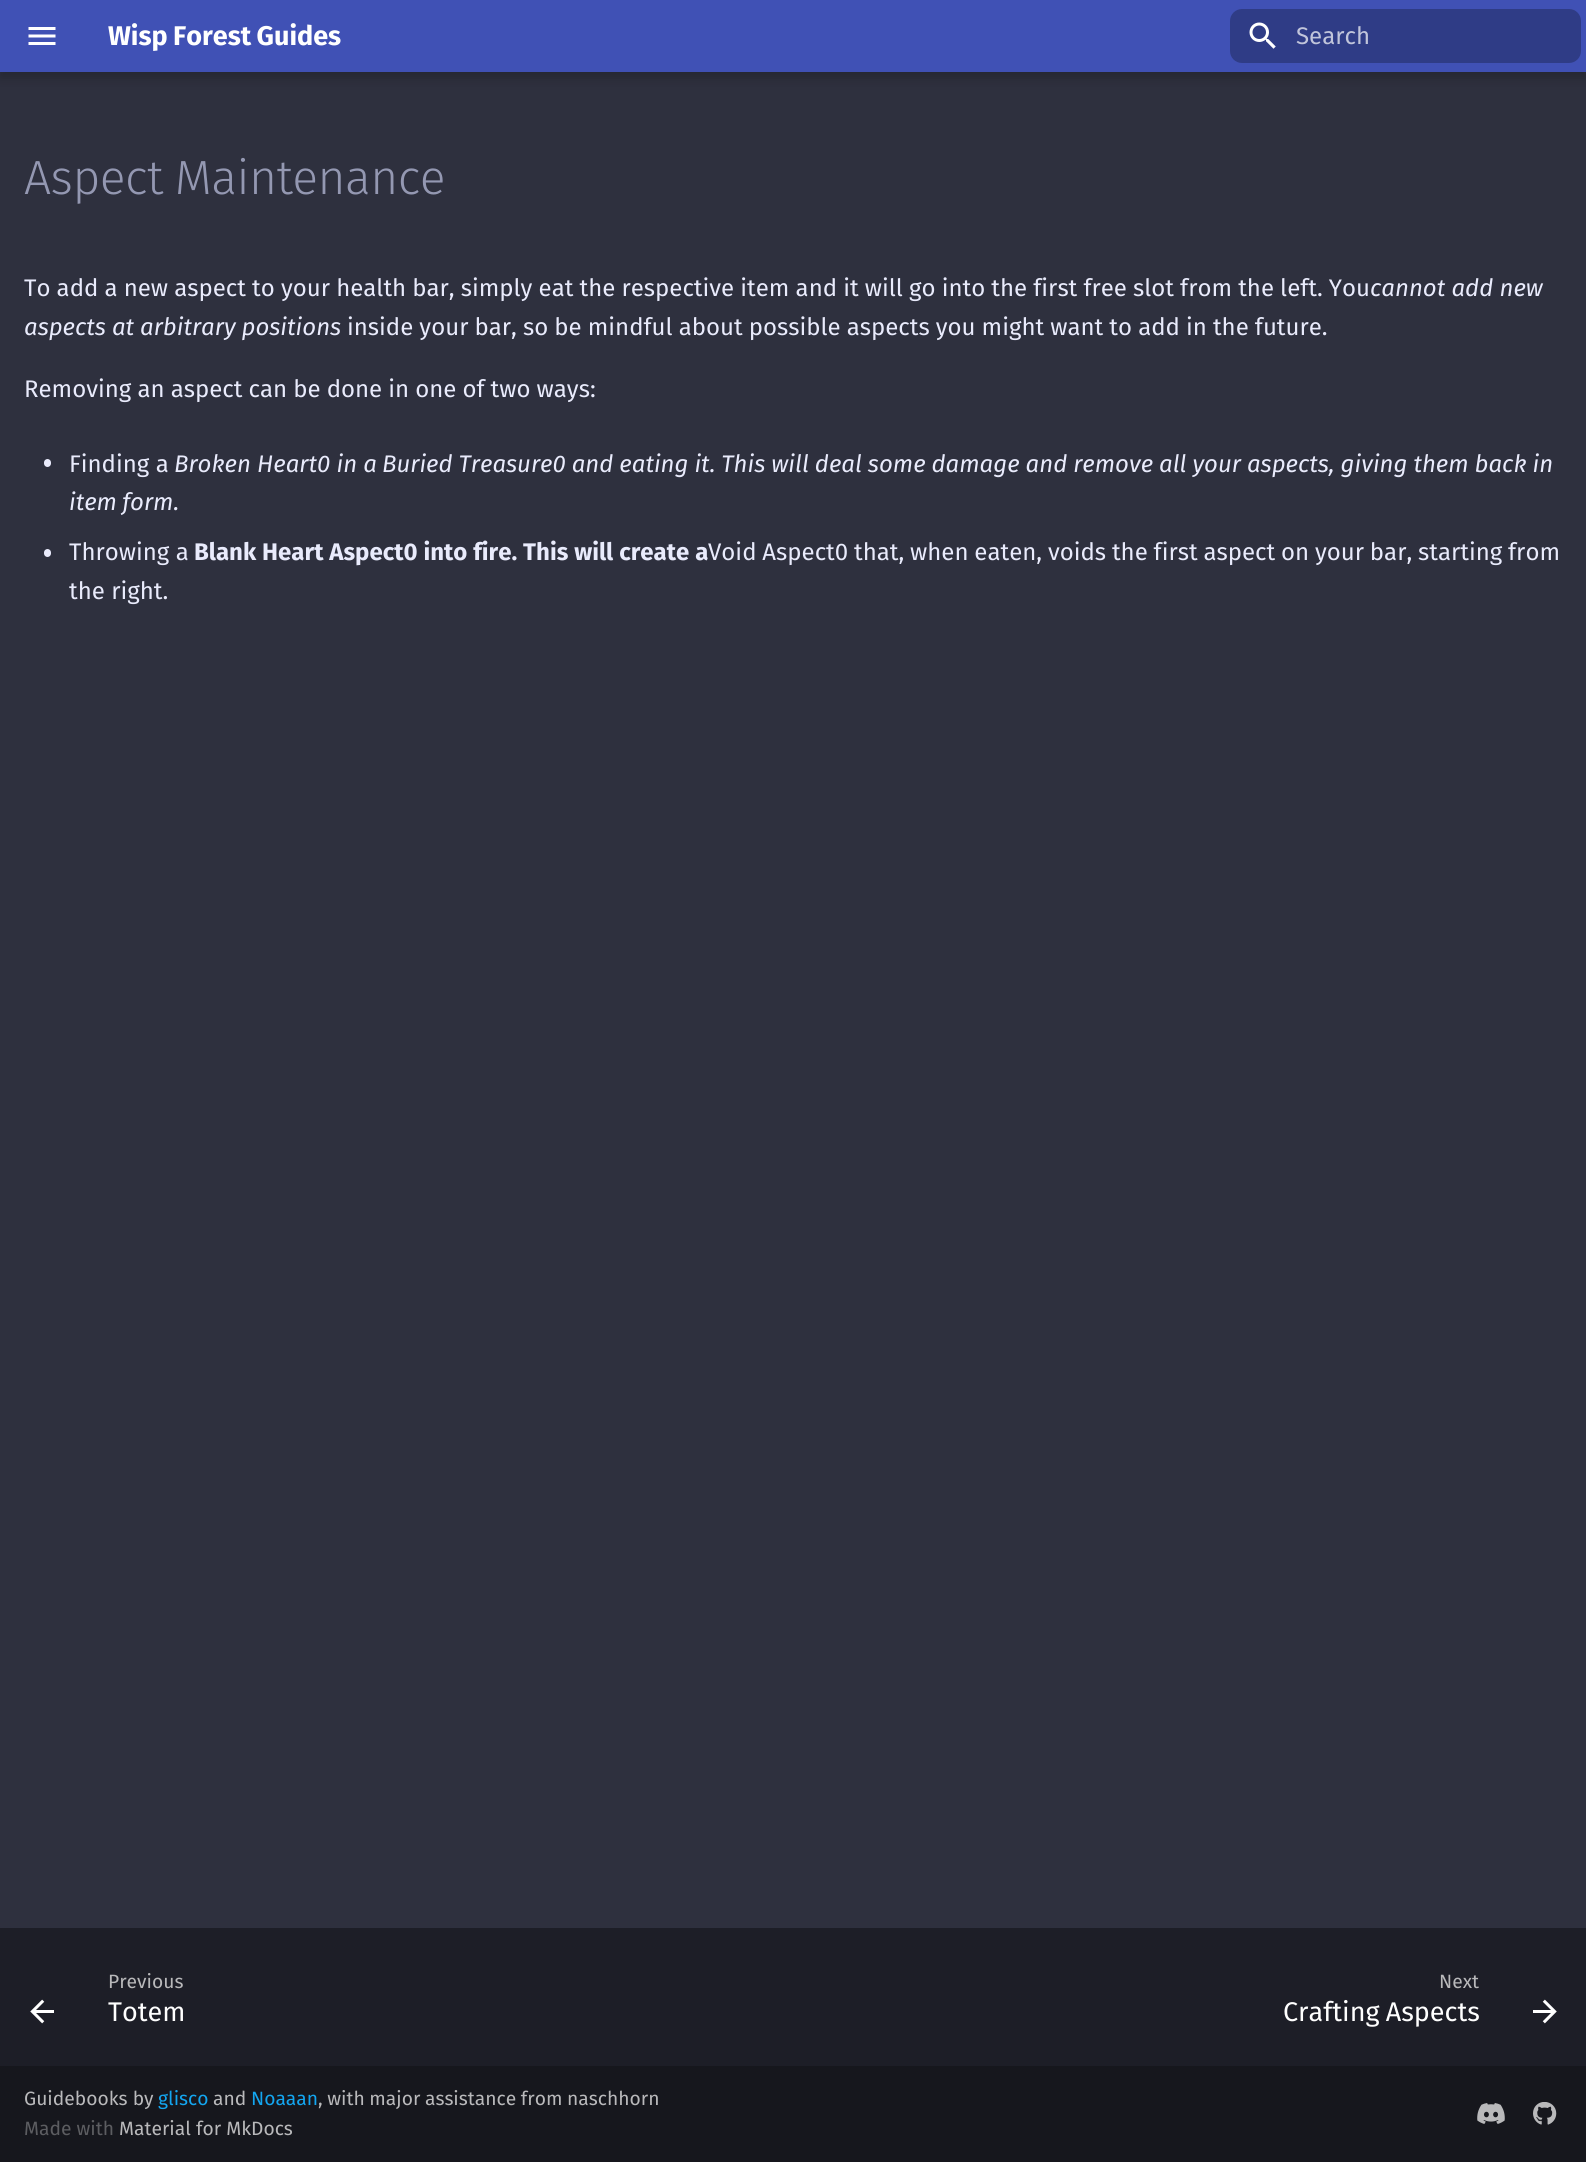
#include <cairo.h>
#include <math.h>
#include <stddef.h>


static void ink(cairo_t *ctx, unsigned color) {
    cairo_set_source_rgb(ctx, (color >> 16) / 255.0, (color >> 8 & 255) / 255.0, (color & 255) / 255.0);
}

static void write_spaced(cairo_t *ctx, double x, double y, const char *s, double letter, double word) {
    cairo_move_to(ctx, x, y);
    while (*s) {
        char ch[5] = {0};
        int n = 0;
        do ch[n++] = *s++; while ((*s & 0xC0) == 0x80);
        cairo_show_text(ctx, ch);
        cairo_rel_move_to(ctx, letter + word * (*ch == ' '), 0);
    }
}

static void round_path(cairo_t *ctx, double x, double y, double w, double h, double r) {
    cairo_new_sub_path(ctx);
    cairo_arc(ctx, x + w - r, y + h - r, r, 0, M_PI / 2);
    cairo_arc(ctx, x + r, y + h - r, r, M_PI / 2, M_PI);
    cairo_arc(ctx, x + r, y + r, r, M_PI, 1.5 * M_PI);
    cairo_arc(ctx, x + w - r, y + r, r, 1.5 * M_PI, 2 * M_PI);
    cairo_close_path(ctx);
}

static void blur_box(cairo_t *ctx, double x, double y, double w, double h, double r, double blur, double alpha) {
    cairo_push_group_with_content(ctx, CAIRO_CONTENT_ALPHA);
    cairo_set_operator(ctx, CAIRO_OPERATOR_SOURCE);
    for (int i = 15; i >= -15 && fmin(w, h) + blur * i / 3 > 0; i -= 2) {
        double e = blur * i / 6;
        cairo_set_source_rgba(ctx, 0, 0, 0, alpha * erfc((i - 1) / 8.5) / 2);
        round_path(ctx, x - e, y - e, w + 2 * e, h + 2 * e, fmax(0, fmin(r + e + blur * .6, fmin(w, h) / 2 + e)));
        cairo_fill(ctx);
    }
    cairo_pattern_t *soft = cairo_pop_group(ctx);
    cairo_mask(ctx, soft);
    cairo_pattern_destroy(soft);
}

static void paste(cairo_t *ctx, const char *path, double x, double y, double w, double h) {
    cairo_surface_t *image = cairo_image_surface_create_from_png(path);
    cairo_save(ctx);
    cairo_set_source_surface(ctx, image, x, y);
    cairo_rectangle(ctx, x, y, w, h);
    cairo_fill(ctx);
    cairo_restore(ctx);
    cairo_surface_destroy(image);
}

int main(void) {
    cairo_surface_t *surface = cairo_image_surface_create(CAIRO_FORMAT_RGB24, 1586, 2162);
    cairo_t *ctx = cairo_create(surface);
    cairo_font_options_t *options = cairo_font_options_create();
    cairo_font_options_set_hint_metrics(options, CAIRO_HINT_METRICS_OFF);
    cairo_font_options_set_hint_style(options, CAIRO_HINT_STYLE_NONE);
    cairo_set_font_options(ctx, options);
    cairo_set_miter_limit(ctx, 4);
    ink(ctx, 0x2E303E);
    cairo_paint(ctx);
    ink(ctx, 0x000000);
    blur_box(ctx, 0, 6, 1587, 72, 0, 6, 0.2);
    ink(ctx, 0x4051B5);
    cairo_rectangle(ctx, 0, 0, 1586, 72);
    cairo_fill(ctx);
    paste(ctx, "media/1.png", 28, 27, 28, 18);
    cairo_select_font_face(ctx, "Fira Sans", CAIRO_FONT_SLANT_NORMAL, CAIRO_FONT_WEIGHT_BOLD);
    cairo_set_font_size(ctx, 27);
    ink(ctx, 0xFFFFFF);
    write_spaced(ctx, 108, 45, "Wisp Forest Guides", 0, -1);
    ink(ctx, 0x2F3C86);
    round_path(ctx, 1230, 9, 351, 54, 12);
    cairo_fill(ctx);
    paste(ctx, "media/2.png", 1249, 22, 27, 27);
    cairo_select_font_face(ctx, "Fira Sans", CAIRO_FONT_SLANT_NORMAL, CAIRO_FONT_WEIGHT_NORMAL);
    cairo_set_font_size(ctx, 24);
    ink(ctx, 0xC1C5DB);
    cairo_move_to(ctx, 1296, 44);
    cairo_show_text(ctx, "Search");
    cairo_select_font_face(ctx, "Fira Sans Light", CAIRO_FONT_SLANT_NORMAL, CAIRO_FONT_WEIGHT_NORMAL);
    cairo_set_font_size(ctx, 48);
    ink(ctx, 0x9498B2);
    write_spaced(ctx, 24, 194, "Aspect Maintenance", -0.5, -1);
    cairo_select_font_face(ctx, "Fira Sans", CAIRO_FONT_SLANT_NORMAL, CAIRO_FONT_WEIGHT_NORMAL);
    cairo_set_font_size(ctx, 24);
    ink(ctx, 0xE9EBFC);
    write_spaced(ctx, 24, 296, "To add a new aspect to your health bar, simply eat the respective item and it will go into the first free slot from the left. You", 0, -0.2);
    cairo_select_font_face(ctx, "Fira Sans", CAIRO_FONT_SLANT_ITALIC, CAIRO_FONT_WEIGHT_NORMAL);
    cairo_move_to(ctx, 1370, 296);
    cairo_show_text(ctx, "cannot add new");
    write_spaced(ctx, 24, 335, "aspects at arbitrary positions", 0, -0.25);
    cairo_select_font_face(ctx, "Fira Sans", CAIRO_FONT_SLANT_NORMAL, CAIRO_FONT_WEIGHT_NORMAL);
    write_spaced(ctx, 347, 335, "inside your bar, so be mindful about possible aspects you might want to add in the future.", 0, -0.25);
    write_spaced(ctx, 24, 397, "Removing an aspect can be done in one of two ways:", 0, -0.25);
    round_path(ctx, 44, 459, 7, 8, 3.5);
    cairo_fill(ctx);
    cairo_move_to(ctx, 69, 472);
    cairo_show_text(ctx, "Finding a");
    cairo_select_font_face(ctx, "Fira Sans", CAIRO_FONT_SLANT_ITALIC, CAIRO_FONT_WEIGHT_NORMAL);
    cairo_move_to(ctx, 174, 472);
    cairo_show_text(ctx, "Broken Heart0 in a");
    write_spaced(ctx, 382, 472, "Buried Treasure0 and eating it. This will deal some damage and remove all your aspects, giving them back in", 0, -0.25);
    write_spaced(ctx, 69, 510, "item form.", 0, -1);
    round_path(ctx, 44, 549, 7, 8, 3.5);
    cairo_fill(ctx);
    cairo_select_font_face(ctx, "Fira Sans", CAIRO_FONT_SLANT_NORMAL, CAIRO_FONT_WEIGHT_NORMAL);
    cairo_move_to(ctx, 69, 560);
    cairo_show_text(ctx, "Throwing a");
    cairo_select_font_face(ctx, "Fira Sans", CAIRO_FONT_SLANT_NORMAL, CAIRO_FONT_WEIGHT_BOLD);
    write_spaced(ctx, 194, 560, "Blank Heart Aspect0 into fire. This will create a", 0, 0.25);
    cairo_select_font_face(ctx, "Fira Sans", CAIRO_FONT_SLANT_NORMAL, CAIRO_FONT_WEIGHT_NORMAL);
    write_spaced(ctx, 708, 560, "Void Aspect0 that, when eaten, voids the first aspect on your bar, starting from", 0, -0.5);
    cairo_move_to(ctx, 69, 599);
    cairo_show_text(ctx, "the right.");
    ink(ctx, 0x1D1E27);
    cairo_rectangle(ctx, 0, 1928, 1586, 138);
    cairo_fill(ctx);
    paste(ctx, "media/3.png", 30, 1999, 24, 25);
    cairo_set_font_size(ctx, 19.25);
    ink(ctx, 0xB9B9BB);
    cairo_move_to(ctx, 108, 1988);
    cairo_show_text(ctx, "Previous");
    cairo_set_font_size(ctx, 27);
    ink(ctx, 0xFFFFFF);
    cairo_move_to(ctx, 108, 2021);
    cairo_show_text(ctx, "Totem");
    cairo_set_font_size(ctx, 19.25);
    ink(ctx, 0xB9B9BB);
    cairo_move_to(ctx, 1439, 1988);
    cairo_show_text(ctx, "Next");
    cairo_set_font_size(ctx, 27);
    ink(ctx, 0xFFFFFF);
    write_spaced(ctx, 1283, 2021, "Crafting Aspects", 0, -1);
    paste(ctx, "media/4.png", 1533, 1999, 24, 25);
    ink(ctx, 0x16171D);
    cairo_rectangle(ctx, 0, 2066, 1586, 96);
    cairo_fill(ctx);
    cairo_set_font_size(ctx, 19.25);
    ink(ctx, 0xB9B9BB);
    cairo_move_to(ctx, 24, 2105);
    cairo_show_text(ctx, "Guidebooks by");
    ink(ctx, 0x13A6F0);
    cairo_move_to(ctx, 158, 2105);
    cairo_show_text(ctx, "glisco");
    ink(ctx, 0xB9B9BB);
    cairo_move_to(ctx, 213, 2105);
    cairo_show_text(ctx, "and");
    ink(ctx, 0x13A6F0);
    cairo_move_to(ctx, 251, 2105);
    cairo_show_text(ctx, "Noaaan");
    ink(ctx, 0xB9B9BB);
    write_spaced(ctx, 318, 2105, ", with major assistance from naschhorn", 0, -0.5);
    ink(ctx, 0x5C5D61);
    cairo_move_to(ctx, 24, 2135);
    cairo_show_text(ctx, "Made with");
    ink(ctx, 0xB9B9BB);
    cairo_move_to(ctx, 119, 2135);
    cairo_show_text(ctx, "Material for MkDocs");
    paste(ctx, "media/5.png", 1477, 2103, 28, 21);
    paste(ctx, "media/6.png", 1533, 2102, 24, 23);
    cairo_surface_write_to_png(surface, "image.png");
    cairo_font_options_destroy(options);
    cairo_destroy(ctx);
    cairo_surface_destroy(surface);
    return 0;
}
